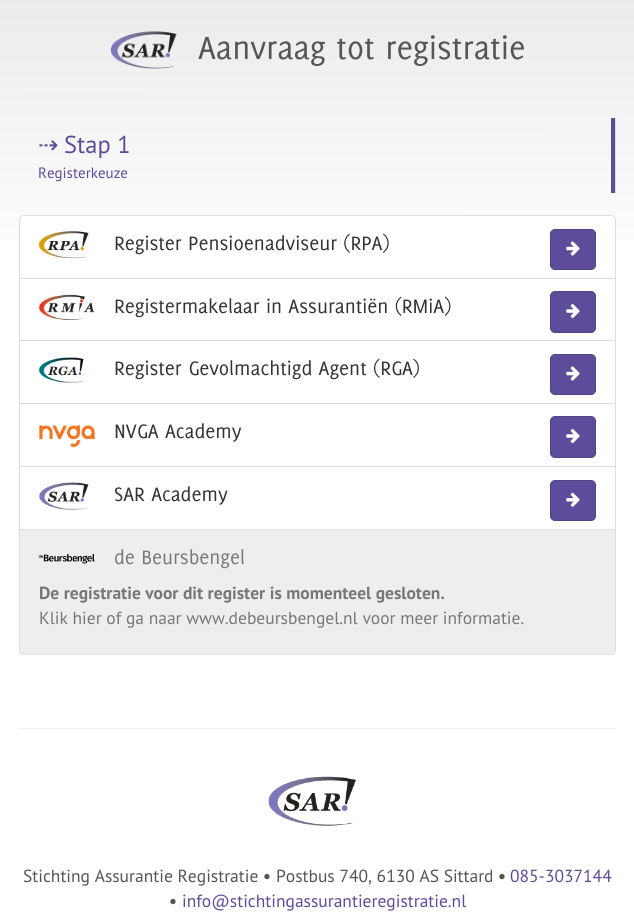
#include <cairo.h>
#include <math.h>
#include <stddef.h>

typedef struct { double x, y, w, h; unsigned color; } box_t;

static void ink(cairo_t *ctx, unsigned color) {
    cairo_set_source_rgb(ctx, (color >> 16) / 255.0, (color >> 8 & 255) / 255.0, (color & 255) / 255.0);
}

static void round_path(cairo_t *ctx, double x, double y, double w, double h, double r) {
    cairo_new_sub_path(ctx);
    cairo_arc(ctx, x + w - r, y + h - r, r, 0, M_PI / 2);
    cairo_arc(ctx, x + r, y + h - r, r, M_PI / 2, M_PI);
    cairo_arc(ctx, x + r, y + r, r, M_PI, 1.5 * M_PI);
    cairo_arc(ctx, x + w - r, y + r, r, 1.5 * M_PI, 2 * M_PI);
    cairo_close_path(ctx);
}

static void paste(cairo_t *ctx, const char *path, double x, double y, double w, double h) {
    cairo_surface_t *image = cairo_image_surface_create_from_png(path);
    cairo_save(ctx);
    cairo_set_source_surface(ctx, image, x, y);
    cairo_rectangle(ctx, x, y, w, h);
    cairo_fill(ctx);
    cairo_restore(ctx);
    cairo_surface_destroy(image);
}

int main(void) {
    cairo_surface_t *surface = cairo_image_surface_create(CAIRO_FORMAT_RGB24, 634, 916);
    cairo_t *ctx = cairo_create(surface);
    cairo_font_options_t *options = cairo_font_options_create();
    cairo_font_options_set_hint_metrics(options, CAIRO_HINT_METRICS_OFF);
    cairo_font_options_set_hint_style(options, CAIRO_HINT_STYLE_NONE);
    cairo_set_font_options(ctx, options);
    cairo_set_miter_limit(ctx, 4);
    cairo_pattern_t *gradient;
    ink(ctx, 0xFFFFFF);
    cairo_paint(ctx);
    gradient = cairo_pattern_create_linear(317, 0, 318, 916);
    cairo_pattern_add_color_stop_rgba(gradient, 0, 0.922, 0.922, 0.922, 1);
    cairo_pattern_add_color_stop_rgba(gradient, 0.3, 1, 1, 1, 1);
    cairo_set_source(ctx, gradient);
    cairo_pattern_destroy(gradient);
    cairo_rectangle(ctx, 0, 0, 634, 241);
    cairo_fill(ctx);
    paste(ctx, "media/1.png", 110, 31, 67, 38);
    cairo_select_font_face(ctx, "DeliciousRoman", CAIRO_FONT_SLANT_NORMAL, CAIRO_FONT_WEIGHT_NORMAL);
    cairo_set_font_size(ctx, 35);
    ink(ctx, 0x555555);
    cairo_move_to(ctx, 198, 59);
    cairo_show_text(ctx, "Aanvraag tot registratie");
    {
        static const box_t items[] = {
            {19, 94, 597, 1, 0xEEEEEE},
            {615, 118, 1, 75, 0xDDDDDD},
            {611, 118, 4, 75, 0x5D4C99},
        };
        for (size_t i = 0; i < sizeof items / sizeof *items; i++) {
            ink(ctx, items[i].color);
            cairo_rectangle(ctx, items[i].x, items[i].y, items[i].w, items[i].h);
            cairo_fill(ctx);
        }
    }
    cairo_select_font_face(ctx, "DejaVu Sans", CAIRO_FONT_SLANT_NORMAL, CAIRO_FONT_WEIGHT_NORMAL);
    cairo_set_font_size(ctx, 24.5);
    cairo_move_to(ctx, 38, 153);
    cairo_show_text(ctx, "⇢");
    cairo_select_font_face(ctx, "PT Sans", CAIRO_FONT_SLANT_NORMAL, CAIRO_FONT_WEIGHT_NORMAL);
    cairo_move_to(ctx, 64, 153);
    cairo_show_text(ctx, "Stap 1");
    cairo_set_font_size(ctx, 15);
    cairo_move_to(ctx, 38, 178);
    cairo_show_text(ctx, "Registerkeuze");
    ink(ctx, 0xFFFFFF);
    cairo_new_path(ctx);
    cairo_move_to(ctx, 24, 215.5);
    cairo_line_to(ctx, 611, 215.5);
    cairo_curve_to(ctx, 613.5, 215.5, 615.5, 217.5, 615.5, 220);
    cairo_line_to(ctx, 615.5, 278.5);
    cairo_line_to(ctx, 19.5, 278.5);
    cairo_line_to(ctx, 19.5, 220);
    cairo_curve_to(ctx, 19.5, 217.5, 21.5, 215.5, 24, 215.5);
    cairo_close_path(ctx);
    cairo_fill_preserve(ctx);
    ink(ctx, 0xDDDDDD);
    cairo_set_line_width(ctx, 1);
    cairo_stroke(ctx);
    paste(ctx, "media/2.png", 38, 231, 51, 28);
    cairo_select_font_face(ctx, "DeliciousRoman", CAIRO_FONT_SLANT_NORMAL, CAIRO_FONT_WEIGHT_NORMAL);
    cairo_set_font_size(ctx, 21.25);
    ink(ctx, 0x333333);
    cairo_move_to(ctx, 114, 250);
    cairo_show_text(ctx, "Register Pensioenadviseur (RPA)");
    ink(ctx, 0x5D4C99);
    round_path(ctx, 550.5, 229.5, 45, 40, 4.5);
    cairo_fill_preserve(ctx);
    ink(ctx, 0x534488);
    cairo_stroke(ctx);
    paste(ctx, "media/3.png", 566, 241, 14, 15);
    cairo_rectangle(ctx, 19.5, 278.5, 596, 62);
    ink(ctx, 0xDDDDDD);
    cairo_stroke(ctx);
    paste(ctx, "media/4.png", 38, 294, 57, 26);
    ink(ctx, 0x333333);
    cairo_move_to(ctx, 114, 313);
    cairo_show_text(ctx, "Registermakelaar in Assurantiën (RMiA)");
    ink(ctx, 0x5D4C99);
    round_path(ctx, 550.5, 291.5, 45, 41, 4.5);
    cairo_fill_preserve(ctx);
    ink(ctx, 0x534488);
    cairo_stroke(ctx);
    paste(ctx, "media/5.png", 566, 304, 14, 15);
    cairo_rectangle(ctx, 19.5, 340.5, 596, 63);
    ink(ctx, 0xDDDDDD);
    cairo_stroke(ctx);
    paste(ctx, "media/6.png", 38, 357, 46, 26);
    ink(ctx, 0x333333);
    cairo_move_to(ctx, 114, 375);
    cairo_show_text(ctx, "Register Gevolmachtigd Agent (RGA)");
    ink(ctx, 0x5D4C99);
    round_path(ctx, 550.5, 354.5, 45, 40, 4.5);
    cairo_fill_preserve(ctx);
    ink(ctx, 0x534488);
    cairo_stroke(ctx);
    paste(ctx, "media/3.png", 566, 366, 14, 15);
    cairo_rectangle(ctx, 19.5, 403.5, 596, 64);
    ink(ctx, 0xDDDDDD);
    cairo_stroke(ctx);
    paste(ctx, "media/7.png", 39, 425, 56, 22);
    ink(ctx, 0x333333);
    cairo_move_to(ctx, 114, 438);
    cairo_show_text(ctx, "NVGA Academy");
    ink(ctx, 0x5D4C99);
    round_path(ctx, 550.5, 416.5, 45, 41, 4.5);
    cairo_fill_preserve(ctx);
    ink(ctx, 0x534488);
    cairo_stroke(ctx);
    paste(ctx, "media/5.png", 566, 429, 14, 15);
    ink(ctx, 0xFFFFFF);
    cairo_rectangle(ctx, 20, 467, 595, 1);
    cairo_fill(ctx);
    cairo_rectangle(ctx, 19.5, 466.5, 596, 63);
    ink(ctx, 0xDDDDDD);
    cairo_stroke(ctx);
    paste(ctx, "media/8.png", 38, 482, 51, 28);
    ink(ctx, 0x333333);
    cairo_move_to(ctx, 114, 501);
    cairo_show_text(ctx, "SAR Academy");
    ink(ctx, 0x5D4C99);
    round_path(ctx, 550.5, 480.5, 45, 40, 4.5);
    cairo_fill_preserve(ctx);
    ink(ctx, 0x534488);
    cairo_stroke(ctx);
    paste(ctx, "media/9.png", 566, 492, 14, 15);
    ink(ctx, 0xEEEEEE);
    cairo_new_path(ctx);
    cairo_move_to(ctx, 19.5, 529.5);
    cairo_line_to(ctx, 615.5, 529.5);
    cairo_line_to(ctx, 615.5, 650);
    cairo_curve_to(ctx, 615.5, 652.5, 613.5, 654.5, 611, 654.5);
    cairo_line_to(ctx, 24, 654.5);
    cairo_curve_to(ctx, 21.5, 654.5, 19.5, 652.5, 19.5, 650);
    cairo_close_path(ctx);
    cairo_fill_preserve(ctx);
    ink(ctx, 0xDDDDDD);
    cairo_stroke(ctx);
    paste(ctx, "media/10.png", 38, 553, 57, 11);
    ink(ctx, 0x777777);
    cairo_move_to(ctx, 114, 564);
    cairo_show_text(ctx, "de Beursbengel");
    cairo_select_font_face(ctx, "PT Sans", CAIRO_FONT_SLANT_NORMAL, CAIRO_FONT_WEIGHT_BOLD);
    cairo_set_font_size(ctx, 17.5);
    cairo_move_to(ctx, 39, 599);
    cairo_show_text(ctx, "De registratie voor dit register is momenteel gesloten.");
    cairo_select_font_face(ctx, "PT Sans", CAIRO_FONT_SLANT_NORMAL, CAIRO_FONT_WEIGHT_NORMAL);
    cairo_move_to(ctx, 39, 624);
    cairo_show_text(ctx, "Klik hier of ga naar www.debeursbengel.nl voor meer informatie.");
    ink(ctx, 0xEEEEEE);
    cairo_rectangle(ctx, 19, 728, 597, 1);
    cairo_fill(ctx);
    paste(ctx, "media/11.png", 268, 776, 88, 50);
    ink(ctx, 0x555555);
    cairo_move_to(ctx, 23, 882);
    cairo_show_text(ctx, "Stichting Assurantie Registratie");
    cairo_select_font_face(ctx, "PT Sans", CAIRO_FONT_SLANT_NORMAL, CAIRO_FONT_WEIGHT_BOLD);
    cairo_move_to(ctx, 263, 882);
    cairo_show_text(ctx, "•");
    cairo_select_font_face(ctx, "PT Sans", CAIRO_FONT_SLANT_NORMAL, CAIRO_FONT_WEIGHT_NORMAL);
    cairo_move_to(ctx, 276, 882);
    cairo_show_text(ctx, "Postbus 740, 6130 AS Sittard");
    cairo_select_font_face(ctx, "PT Sans", CAIRO_FONT_SLANT_NORMAL, CAIRO_FONT_WEIGHT_BOLD);
    cairo_move_to(ctx, 498, 882);
    cairo_show_text(ctx, "•");
    cairo_select_font_face(ctx, "PT Sans", CAIRO_FONT_SLANT_NORMAL, CAIRO_FONT_WEIGHT_NORMAL);
    ink(ctx, 0x5D4C99);
    cairo_move_to(ctx, 510, 882);
    cairo_show_text(ctx, "085-3037144");
    cairo_select_font_face(ctx, "PT Sans", CAIRO_FONT_SLANT_NORMAL, CAIRO_FONT_WEIGHT_BOLD);
    ink(ctx, 0x555555);
    cairo_move_to(ctx, 169, 907);
    cairo_show_text(ctx, "•");
    cairo_select_font_face(ctx, "PT Sans", CAIRO_FONT_SLANT_NORMAL, CAIRO_FONT_WEIGHT_NORMAL);
    ink(ctx, 0x5D4C99);
    cairo_move_to(ctx, 182, 907);
    cairo_show_text(ctx, "info@stichtingassurantieregistratie.nl");
    cairo_surface_write_to_png(surface, "image.png");
    cairo_font_options_destroy(options);
    cairo_destroy(ctx);
    cairo_surface_destroy(surface);
    return 0;
}
